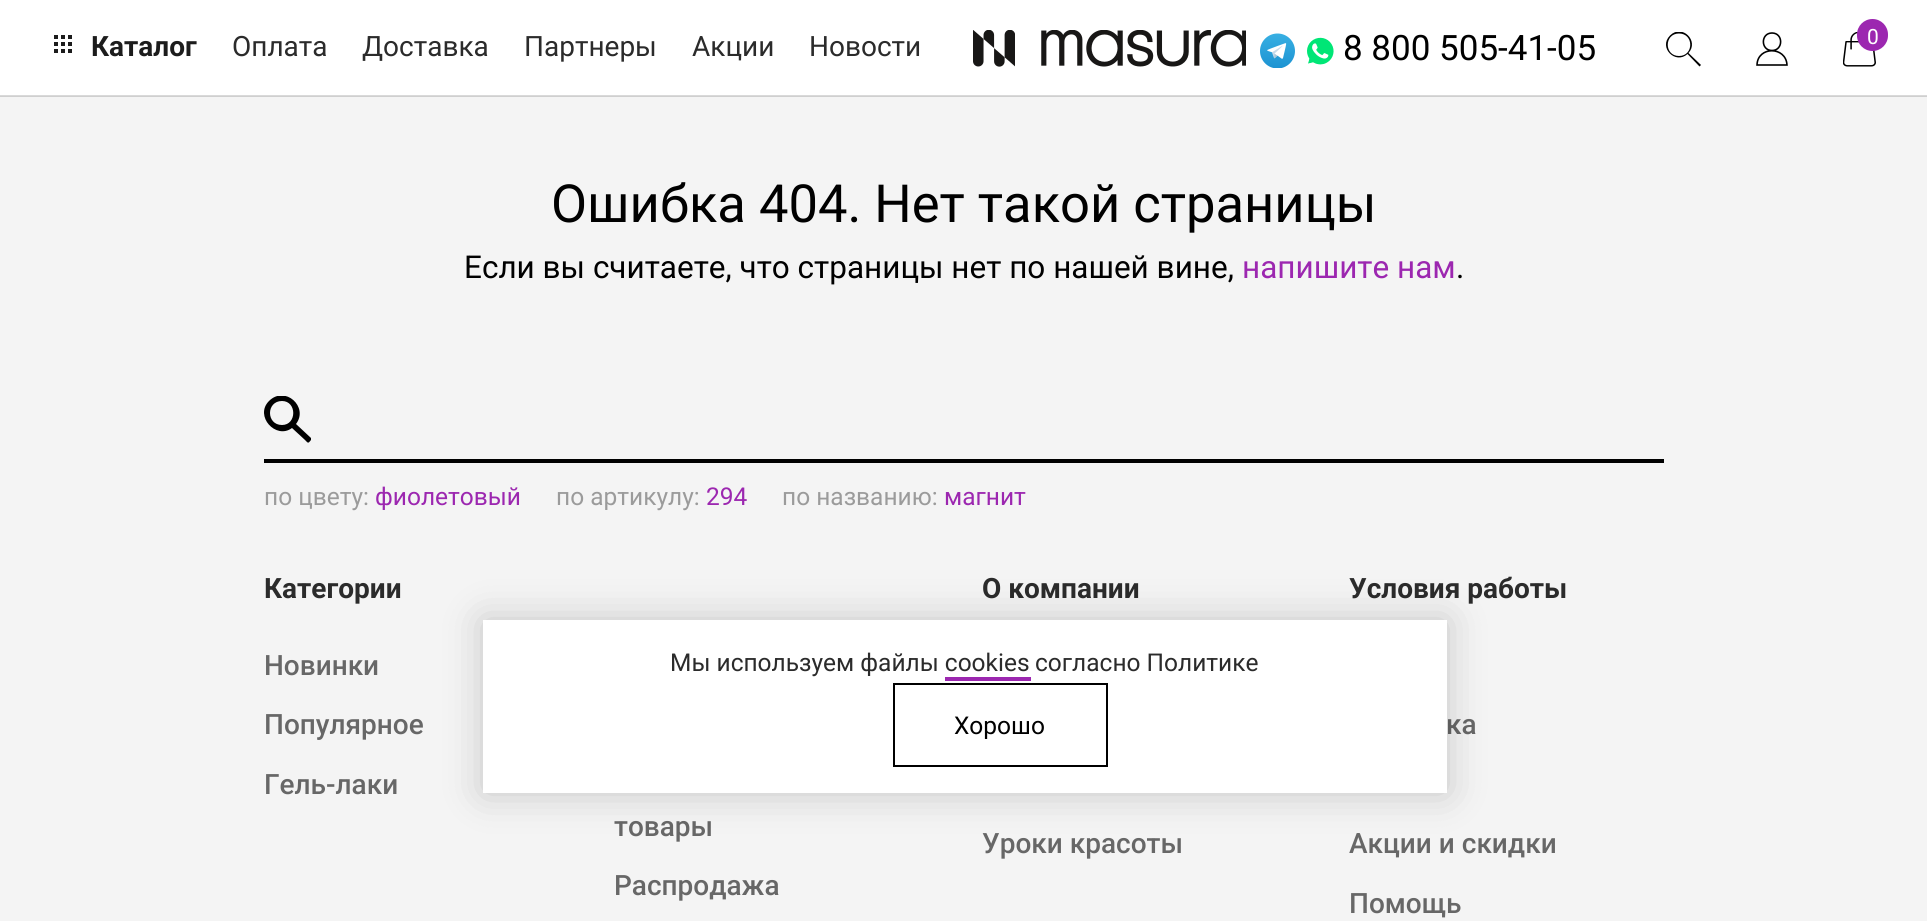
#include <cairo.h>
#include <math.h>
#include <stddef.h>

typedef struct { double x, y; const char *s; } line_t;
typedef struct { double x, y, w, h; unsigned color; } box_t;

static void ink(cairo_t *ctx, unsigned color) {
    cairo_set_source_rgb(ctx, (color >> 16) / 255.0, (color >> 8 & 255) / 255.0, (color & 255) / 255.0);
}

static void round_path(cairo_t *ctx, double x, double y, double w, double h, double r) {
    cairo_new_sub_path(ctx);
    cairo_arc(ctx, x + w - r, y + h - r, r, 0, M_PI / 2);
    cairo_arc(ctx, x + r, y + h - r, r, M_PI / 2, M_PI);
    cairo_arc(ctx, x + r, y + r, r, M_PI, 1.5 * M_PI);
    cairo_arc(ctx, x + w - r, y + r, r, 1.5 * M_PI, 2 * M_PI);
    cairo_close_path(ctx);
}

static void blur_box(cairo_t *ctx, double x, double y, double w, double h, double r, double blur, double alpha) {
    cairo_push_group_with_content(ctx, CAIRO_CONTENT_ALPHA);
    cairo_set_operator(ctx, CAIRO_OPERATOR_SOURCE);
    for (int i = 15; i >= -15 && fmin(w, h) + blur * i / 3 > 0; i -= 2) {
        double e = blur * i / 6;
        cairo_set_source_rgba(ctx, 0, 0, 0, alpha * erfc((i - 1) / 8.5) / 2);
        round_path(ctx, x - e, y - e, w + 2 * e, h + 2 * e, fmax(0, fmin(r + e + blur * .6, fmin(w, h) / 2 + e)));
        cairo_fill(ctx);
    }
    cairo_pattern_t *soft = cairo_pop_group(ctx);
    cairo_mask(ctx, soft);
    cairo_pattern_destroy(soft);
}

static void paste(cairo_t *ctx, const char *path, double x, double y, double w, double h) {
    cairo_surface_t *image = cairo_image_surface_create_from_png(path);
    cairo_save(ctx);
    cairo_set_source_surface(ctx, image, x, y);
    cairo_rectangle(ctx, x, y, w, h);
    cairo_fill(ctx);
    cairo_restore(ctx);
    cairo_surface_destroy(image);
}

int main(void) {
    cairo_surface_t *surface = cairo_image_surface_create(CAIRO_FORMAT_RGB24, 1927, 921);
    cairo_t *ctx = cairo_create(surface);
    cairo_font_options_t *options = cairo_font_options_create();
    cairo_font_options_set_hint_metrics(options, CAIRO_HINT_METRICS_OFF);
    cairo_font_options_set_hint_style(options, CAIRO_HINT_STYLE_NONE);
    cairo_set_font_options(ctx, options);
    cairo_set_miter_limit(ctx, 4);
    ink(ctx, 0xF4F4F4);
    cairo_paint(ctx);
    {
        static const box_t items[] = {
            {0, 96, 1927, 1, 0xCFCFCF},
            {0, 0, 1927, 95, 0xFFFFFF},
            {0, 95, 1927, 1, 0xD9D9D9},
            {54, 35, 4, 4, 0x1C1C1C},
            {61, 35, 4, 4, 0x1C1C1C},
            {68, 35, 4, 4, 0x1C1C1C},
            {54, 42, 4, 4, 0x1C1C1C},
            {61, 42, 4, 4, 0x1C1C1C},
            {68, 42, 4, 4, 0x1C1C1C},
            {54, 49, 4, 4, 0x1C1C1C},
            {61, 49, 4, 4, 0x1C1C1C},
            {68, 49, 4, 4, 0x1C1C1C},
        };
        for (size_t i = 0; i < sizeof items / sizeof *items; i++) {
            ink(ctx, items[i].color);
            cairo_rectangle(ctx, items[i].x, items[i].y, items[i].w, items[i].h);
            cairo_fill(ctx);
        }
    }
    cairo_select_font_face(ctx, "Roboto", CAIRO_FONT_SLANT_NORMAL, CAIRO_FONT_WEIGHT_BOLD);
    cairo_set_font_size(ctx, 28);
    cairo_move_to(ctx, 91, 56);
    cairo_show_text(ctx, "Каталог");
    cairo_select_font_face(ctx, "Roboto", CAIRO_FONT_SLANT_NORMAL, CAIRO_FONT_WEIGHT_NORMAL);
    ink(ctx, 0x2B2B2B);
    {
        static const line_t items[] = {
            {232, 56, "Оплата"},
            {362, 56, "Доставка"},
            {524, 56, "Партнеры"},
            {692, 56, "Акции"},
            {809, 56, "Новости"},
        };
        for (size_t i = 0; i < sizeof items / sizeof *items; i++) {
            cairo_move_to(ctx, items[i].x, items[i].y);
            cairo_show_text(ctx, items[i].s);
        }
    }
    paste(ctx, "media/1.png", 973, 30, 42, 37);
    paste(ctx, "media/2.png", 1041, 30, 205, 37);
    paste(ctx, "media/3.png", 1260, 33, 35, 35);
    paste(ctx, "media/4.png", 1307, 37, 27, 28);
    cairo_set_font_size(ctx, 35);
    ink(ctx, 0x000000);
    cairo_move_to(ctx, 1343, 60);
    cairo_show_text(ctx, "8 800 505-41-05");
    cairo_save(ctx);
    cairo_rectangle(ctx, 1666, 32, 35, 35);
    cairo_clip(ctx);
    cairo_new_path(ctx);
    cairo_move_to(ctx, 1701, 65);
    cairo_line_to(ctx, 1688.5, 53);
    cairo_curve_to(ctx, 1699.5, 41, 1682, 23.5, 1670, 35.5);
    cairo_curve_to(ctx, 1658, 47.5, 1675.5, 65, 1687.5, 54);
    cairo_line_to(ctx, 1699.5, 66.5);
    cairo_close_path(ctx);
    cairo_move_to(ctx, 1679, 56);
    cairo_curve_to(ctx, 1664, 56, 1664, 33.5, 1679, 33.5);
    cairo_curve_to(ctx, 1694, 33.5, 1694, 56, 1679, 56);
    cairo_close_path(ctx);
    cairo_fill(ctx);
    cairo_restore(ctx);
    cairo_new_path(ctx);
    cairo_move_to(ctx, 1757, 65);
    cairo_curve_to(ctx, 1757.5, 46, 1786, 46, 1787, 65);
    cairo_close_path(ctx);
    cairo_move_to(ctx, 1772, 50.5);
    cairo_curve_to(ctx, 1760.5, 50.5, 1760.5, 33, 1772, 33);
    cairo_curve_to(ctx, 1783.5, 33, 1783.5, 50.5, 1772, 50.5);
    cairo_close_path(ctx);
    cairo_set_line_width(ctx, 1.6);
    cairo_stroke(ctx);
    paste(ctx, "media/5.png", 1843, 32, 33, 35);
    ink(ctx, 0x9C27B0);
    round_path(ctx, 1857, 19, 31, 32, 15.5);
    cairo_fill(ctx);
    cairo_set_font_size(ctx, 21);
    ink(ctx, 0xFFFFFF);
    cairo_move_to(ctx, 1867, 44);
    cairo_show_text(ctx, "0");
    cairo_set_font_size(ctx, 52.5);
    ink(ctx, 0x000000);
    cairo_move_to(ctx, 551, 222);
    cairo_show_text(ctx, "Ошибка 404. Нет такой страницы");
    cairo_set_font_size(ctx, 31.5);
    cairo_move_to(ctx, 464, 278);
    cairo_show_text(ctx, "Если вы считаете, что страницы нет по нашей вине,");
    ink(ctx, 0x9C27B0);
    cairo_move_to(ctx, 1242, 278);
    cairo_show_text(ctx, "напишите нам");
    ink(ctx, 0x000000);
    cairo_move_to(ctx, 1456, 278);
    cairo_show_text(ctx, ".");
    cairo_save(ctx);
    cairo_rectangle(ctx, 264, 396, 48, 47);
    cairo_clip(ctx);
    cairo_new_path(ctx);
    cairo_move_to(ctx, 311, 438);
    cairo_line_to(ctx, 311, 440);
    cairo_curve_to(ctx, 308, 444, 308, 443, 305, 440);
    cairo_line_to(ctx, 292, 428);
    cairo_curve_to(ctx, 276, 440, 254, 416, 269, 401);
    cairo_curve_to(ctx, 285, 385, 309, 407, 296, 424);
    cairo_close_path(ctx);
    cairo_move_to(ctx, 282, 401);
    cairo_curve_to(ctx, 266, 401, 266, 425, 282, 425);
    cairo_curve_to(ctx, 297, 425, 297, 401, 282, 401);
    cairo_close_path(ctx);
    cairo_fill(ctx);
    cairo_restore(ctx);
    cairo_rectangle(ctx, 264, 459, 1400, 4);
    cairo_fill(ctx);
    cairo_set_font_size(ctx, 24.5);
    ink(ctx, 0x9B9B9B);
    cairo_move_to(ctx, 264, 505);
    cairo_show_text(ctx, "по цвету:");
    ink(ctx, 0x9C27B0);
    cairo_move_to(ctx, 375, 505);
    cairo_show_text(ctx, "фиолетовый");
    ink(ctx, 0x9B9B9B);
    cairo_move_to(ctx, 556, 505);
    cairo_show_text(ctx, "по артикулу:");
    ink(ctx, 0x9C27B0);
    cairo_move_to(ctx, 706, 505);
    cairo_show_text(ctx, "294");
    ink(ctx, 0x9B9B9B);
    cairo_move_to(ctx, 782, 505);
    cairo_show_text(ctx, "по названию:");
    ink(ctx, 0x9C27B0);
    cairo_move_to(ctx, 944, 505);
    cairo_show_text(ctx, "магнит");
    cairo_select_font_face(ctx, "Roboto", CAIRO_FONT_SLANT_NORMAL, CAIRO_FONT_WEIGHT_BOLD);
    cairo_set_font_size(ctx, 28);
    ink(ctx, 0x2B2B2B);
    cairo_move_to(ctx, 264, 598);
    cairo_show_text(ctx, "Категории");
    cairo_select_font_face(ctx, "Roboto Medium", CAIRO_FONT_SLANT_NORMAL, CAIRO_FONT_WEIGHT_NORMAL);
    ink(ctx, 0x676767);
    {
        static const line_t items[] = {
            {264, 675, "Новинки"},
            {264, 734, "Популярное"},
            {264, 794, "Гель-лаки"},
            {614, 836, "товары"},
            {614, 895, "Распродажа"},
        };
        for (size_t i = 0; i < sizeof items / sizeof *items; i++) {
            cairo_move_to(ctx, items[i].x, items[i].y);
            cairo_show_text(ctx, items[i].s);
        }
    }
    cairo_select_font_face(ctx, "Roboto", CAIRO_FONT_SLANT_NORMAL, CAIRO_FONT_WEIGHT_BOLD);
    ink(ctx, 0x2B2B2B);
    cairo_move_to(ctx, 982, 598);
    cairo_show_text(ctx, "О компании");
    cairo_select_font_face(ctx, "Roboto Medium", CAIRO_FONT_SLANT_NORMAL, CAIRO_FONT_WEIGHT_NORMAL);
    ink(ctx, 0x676767);
    cairo_move_to(ctx, 982, 853);
    cairo_show_text(ctx, "Уроки красоты");
    cairo_select_font_face(ctx, "Roboto", CAIRO_FONT_SLANT_NORMAL, CAIRO_FONT_WEIGHT_BOLD);
    ink(ctx, 0x2B2B2B);
    cairo_move_to(ctx, 1349, 598);
    cairo_show_text(ctx, "Условия работы");
    cairo_select_font_face(ctx, "Roboto Medium", CAIRO_FONT_SLANT_NORMAL, CAIRO_FONT_WEIGHT_NORMAL);
    ink(ctx, 0x676767);
    {
        static const line_t items[] = {
            {1446, 734, "ка"},
            {1349, 853, "Акции и скидки"},
            {1349, 913, "Помощь"},
        };
        for (size_t i = 0; i < sizeof items / sizeof *items; i++) {
            cairo_move_to(ctx, items[i].x, items[i].y);
            cairo_show_text(ctx, items[i].s);
        }
    }
    ink(ctx, 0x000000);
    blur_box(ctx, 483, 620, 964, 173, 0, 19, 0.2);
    ink(ctx, 0xFFFFFF);
    cairo_rectangle(ctx, 483, 620, 964, 173);
    cairo_fill(ctx);
    cairo_select_font_face(ctx, "Roboto", CAIRO_FONT_SLANT_NORMAL, CAIRO_FONT_WEIGHT_NORMAL);
    cairo_set_font_size(ctx, 24.5);
    ink(ctx, 0x2B2B2B);
    cairo_move_to(ctx, 670, 671);
    cairo_show_text(ctx, "Мы используем файлы cookies");
    cairo_move_to(ctx, 1035, 671);
    cairo_show_text(ctx, "согласно Политике");
    ink(ctx, 0x9C27B0);
    cairo_rectangle(ctx, 945, 677, 86, 4);
    cairo_fill(ctx);
    cairo_rectangle(ctx, 894, 684, 213, 82);
    ink(ctx, 0x000000);
    cairo_set_line_width(ctx, 2);
    cairo_stroke(ctx);
    cairo_move_to(ctx, 954, 734);
    cairo_show_text(ctx, "Хорошо");
    cairo_surface_write_to_png(surface, "image.png");
    cairo_font_options_destroy(options);
    cairo_destroy(ctx);
    cairo_surface_destroy(surface);
    return 0;
}
